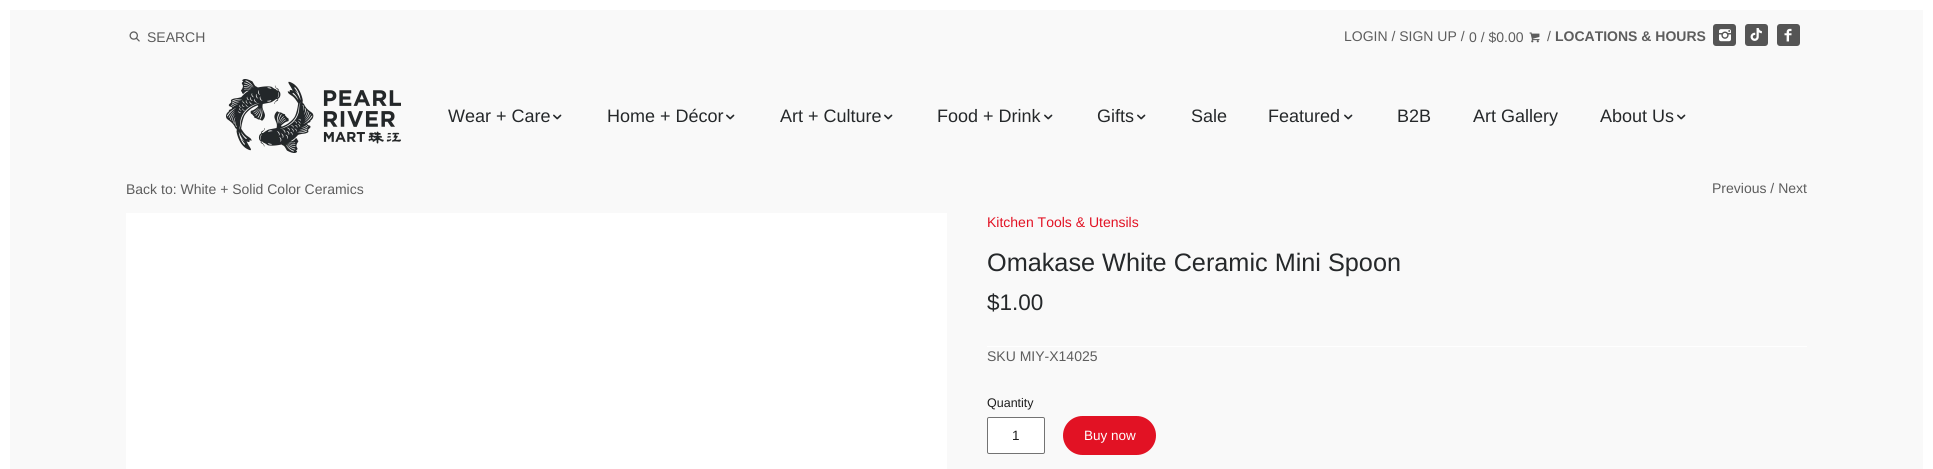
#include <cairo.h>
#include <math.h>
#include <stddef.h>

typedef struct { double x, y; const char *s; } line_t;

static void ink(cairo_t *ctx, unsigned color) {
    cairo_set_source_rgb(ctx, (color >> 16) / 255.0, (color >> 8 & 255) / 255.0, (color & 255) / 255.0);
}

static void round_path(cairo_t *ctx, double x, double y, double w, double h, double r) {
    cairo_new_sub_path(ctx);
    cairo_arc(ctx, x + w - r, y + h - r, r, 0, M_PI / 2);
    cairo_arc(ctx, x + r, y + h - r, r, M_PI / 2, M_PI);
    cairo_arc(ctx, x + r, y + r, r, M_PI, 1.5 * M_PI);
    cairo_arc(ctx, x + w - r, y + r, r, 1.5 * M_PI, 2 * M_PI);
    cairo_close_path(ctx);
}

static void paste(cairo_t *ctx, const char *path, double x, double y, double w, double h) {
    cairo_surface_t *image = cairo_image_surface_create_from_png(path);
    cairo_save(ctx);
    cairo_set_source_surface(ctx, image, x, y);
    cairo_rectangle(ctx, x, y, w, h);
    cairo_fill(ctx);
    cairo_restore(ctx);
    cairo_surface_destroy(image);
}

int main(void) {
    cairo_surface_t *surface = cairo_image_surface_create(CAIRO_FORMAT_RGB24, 1933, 469);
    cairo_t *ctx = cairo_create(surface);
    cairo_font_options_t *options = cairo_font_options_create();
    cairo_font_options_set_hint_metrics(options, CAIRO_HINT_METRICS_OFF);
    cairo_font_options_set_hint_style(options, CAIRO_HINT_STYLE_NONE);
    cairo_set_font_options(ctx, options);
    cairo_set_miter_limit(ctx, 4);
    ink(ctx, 0xFFFFFF);
    cairo_paint(ctx);
    ink(ctx, 0xF9F9F9);
    cairo_rectangle(ctx, 10, 10, 1913, 459);
    cairo_fill(ctx);
    paste(ctx, "media/1.png", 129, 31, 11, 11);
    cairo_select_font_face(ctx, "Liberation Sans", CAIRO_FONT_SLANT_NORMAL, CAIRO_FONT_WEIGHT_NORMAL);
    cairo_set_font_size(ctx, 14);
    ink(ctx, 0x5D5D5D);
    {
        static const line_t items[] = {
            {147, 42, "SEARCH"},
            {1344, 41, "LOGIN / SIGN UP /"},
            {1469, 42, "0 / $0.00"},
        };
        for (size_t i = 0; i < sizeof items / sizeof *items; i++) {
            cairo_move_to(ctx, items[i].x, items[i].y);
            cairo_show_text(ctx, items[i].s);
        }
    }
    paste(ctx, "media/2.png", 1529, 32, 11, 11);
    cairo_move_to(ctx, 1547, 41);
    cairo_show_text(ctx, "/");
    cairo_select_font_face(ctx, "Liberation Sans", CAIRO_FONT_SLANT_NORMAL, CAIRO_FONT_WEIGHT_BOLD);
    cairo_move_to(ctx, 1555, 41);
    cairo_show_text(ctx, "LOCATIONS & HOURS");
    ink(ctx, 0x555555);
    round_path(ctx, 1713, 24, 23, 22, 3);
    cairo_fill(ctx);
    paste(ctx, "media/3.png", 1719, 29, 12, 13);
    round_path(ctx, 1745, 24, 23, 22, 3);
    cairo_fill(ctx);
    paste(ctx, "media/4.png", 1750, 28, 12, 13);
    round_path(ctx, 1777, 24, 23, 22, 3);
    cairo_fill(ctx);
    paste(ctx, "media/5.png", 1784, 28, 8, 14);
    paste(ctx, "media/6.png", 226, 79, 175, 74);
    cairo_select_font_face(ctx, "Liberation Sans", CAIRO_FONT_SLANT_NORMAL, CAIRO_FONT_WEIGHT_NORMAL);
    cairo_set_font_size(ctx, 18);
    ink(ctx, 0x25282A);
    cairo_move_to(ctx, 448, 122);
    cairo_show_text(ctx, "Wear + Care");
    paste(ctx, "media/7.png", 553, 114, 9, 6);
    cairo_move_to(ctx, 607, 122);
    cairo_show_text(ctx, "Home + Décor");
    paste(ctx, "media/7.png", 726, 114, 9, 6);
    cairo_move_to(ctx, 780, 122);
    cairo_show_text(ctx, "Art + Culture");
    paste(ctx, "media/7.png", 884, 114, 9, 6);
    cairo_move_to(ctx, 937, 122);
    cairo_show_text(ctx, "Food + Drink");
    paste(ctx, "media/7.png", 1044, 114, 9, 6);
    cairo_move_to(ctx, 1097, 122);
    cairo_show_text(ctx, "Gifts");
    paste(ctx, "media/7.png", 1137, 114, 9, 6);
    cairo_move_to(ctx, 1191, 122);
    cairo_show_text(ctx, "Sale");
    cairo_move_to(ctx, 1268, 122);
    cairo_show_text(ctx, "Featured");
    paste(ctx, "media/7.png", 1344, 114, 9, 6);
    {
        static const line_t items[] = {
            {1397, 122, "B2B"},
            {1473, 122, "Art Gallery"},
            {1600, 122, "About Us"},
        };
        for (size_t i = 0; i < sizeof items / sizeof *items; i++) {
            cairo_move_to(ctx, items[i].x, items[i].y);
            cairo_show_text(ctx, items[i].s);
        }
    }
    paste(ctx, "media/7.png", 1677, 114, 9, 6);
    cairo_set_font_size(ctx, 14);
    ink(ctx, 0x5D5D5D);
    cairo_move_to(ctx, 126, 194);
    cairo_show_text(ctx, "Back to: White + Solid Color Ceramics");
    cairo_move_to(ctx, 1712, 193);
    cairo_show_text(ctx, "Previous / Next");
    ink(ctx, 0xFFFFFF);
    cairo_rectangle(ctx, 126, 213, 821, 256);
    cairo_fill(ctx);
    cairo_rectangle(ctx, 987, 346, 820, 1);
    cairo_fill(ctx);
    ink(ctx, 0xE21224);
    cairo_move_to(ctx, 987, 227);
    cairo_show_text(ctx, "Kitchen Tools & Utensils");
    cairo_set_font_size(ctx, 25.25);
    ink(ctx, 0x25282A);
    cairo_move_to(ctx, 987, 271);
    cairo_show_text(ctx, "Omakase White Ceramic Mini Spoon");
    cairo_set_font_size(ctx, 22.5);
    cairo_move_to(ctx, 987, 310);
    cairo_show_text(ctx, "$1.00");
    cairo_set_font_size(ctx, 14);
    ink(ctx, 0x5D5D5D);
    cairo_move_to(ctx, 987, 361);
    cairo_show_text(ctx, "SKU MIY-X14025");
    cairo_set_font_size(ctx, 12.5);
    ink(ctx, 0x1D1D1D);
    cairo_move_to(ctx, 987, 407);
    cairo_show_text(ctx, "Quantity");
    ink(ctx, 0xFFFFFF);
    round_path(ctx, 987.5, 417.5, 57, 36, 1.5);
    cairo_fill_preserve(ctx);
    ink(ctx, 0x737373);
    cairo_set_line_width(ctx, 1);
    cairo_stroke(ctx);
    cairo_set_font_size(ctx, 13.5);
    ink(ctx, 0x1D1D1D);
    cairo_move_to(ctx, 1012, 440);
    cairo_show_text(ctx, "1");
    ink(ctx, 0xE21224);
    round_path(ctx, 1064, 417, 91, 37, 18.5);
    cairo_fill_preserve(ctx);
    cairo_set_line_width(ctx, 2);
    cairo_stroke(ctx);
    ink(ctx, 0xFFFFFF);
    cairo_move_to(ctx, 1084, 440);
    cairo_show_text(ctx, "Buy now");
    cairo_surface_write_to_png(surface, "image.png");
    cairo_font_options_destroy(options);
    cairo_destroy(ctx);
    cairo_surface_destroy(surface);
    return 0;
}
